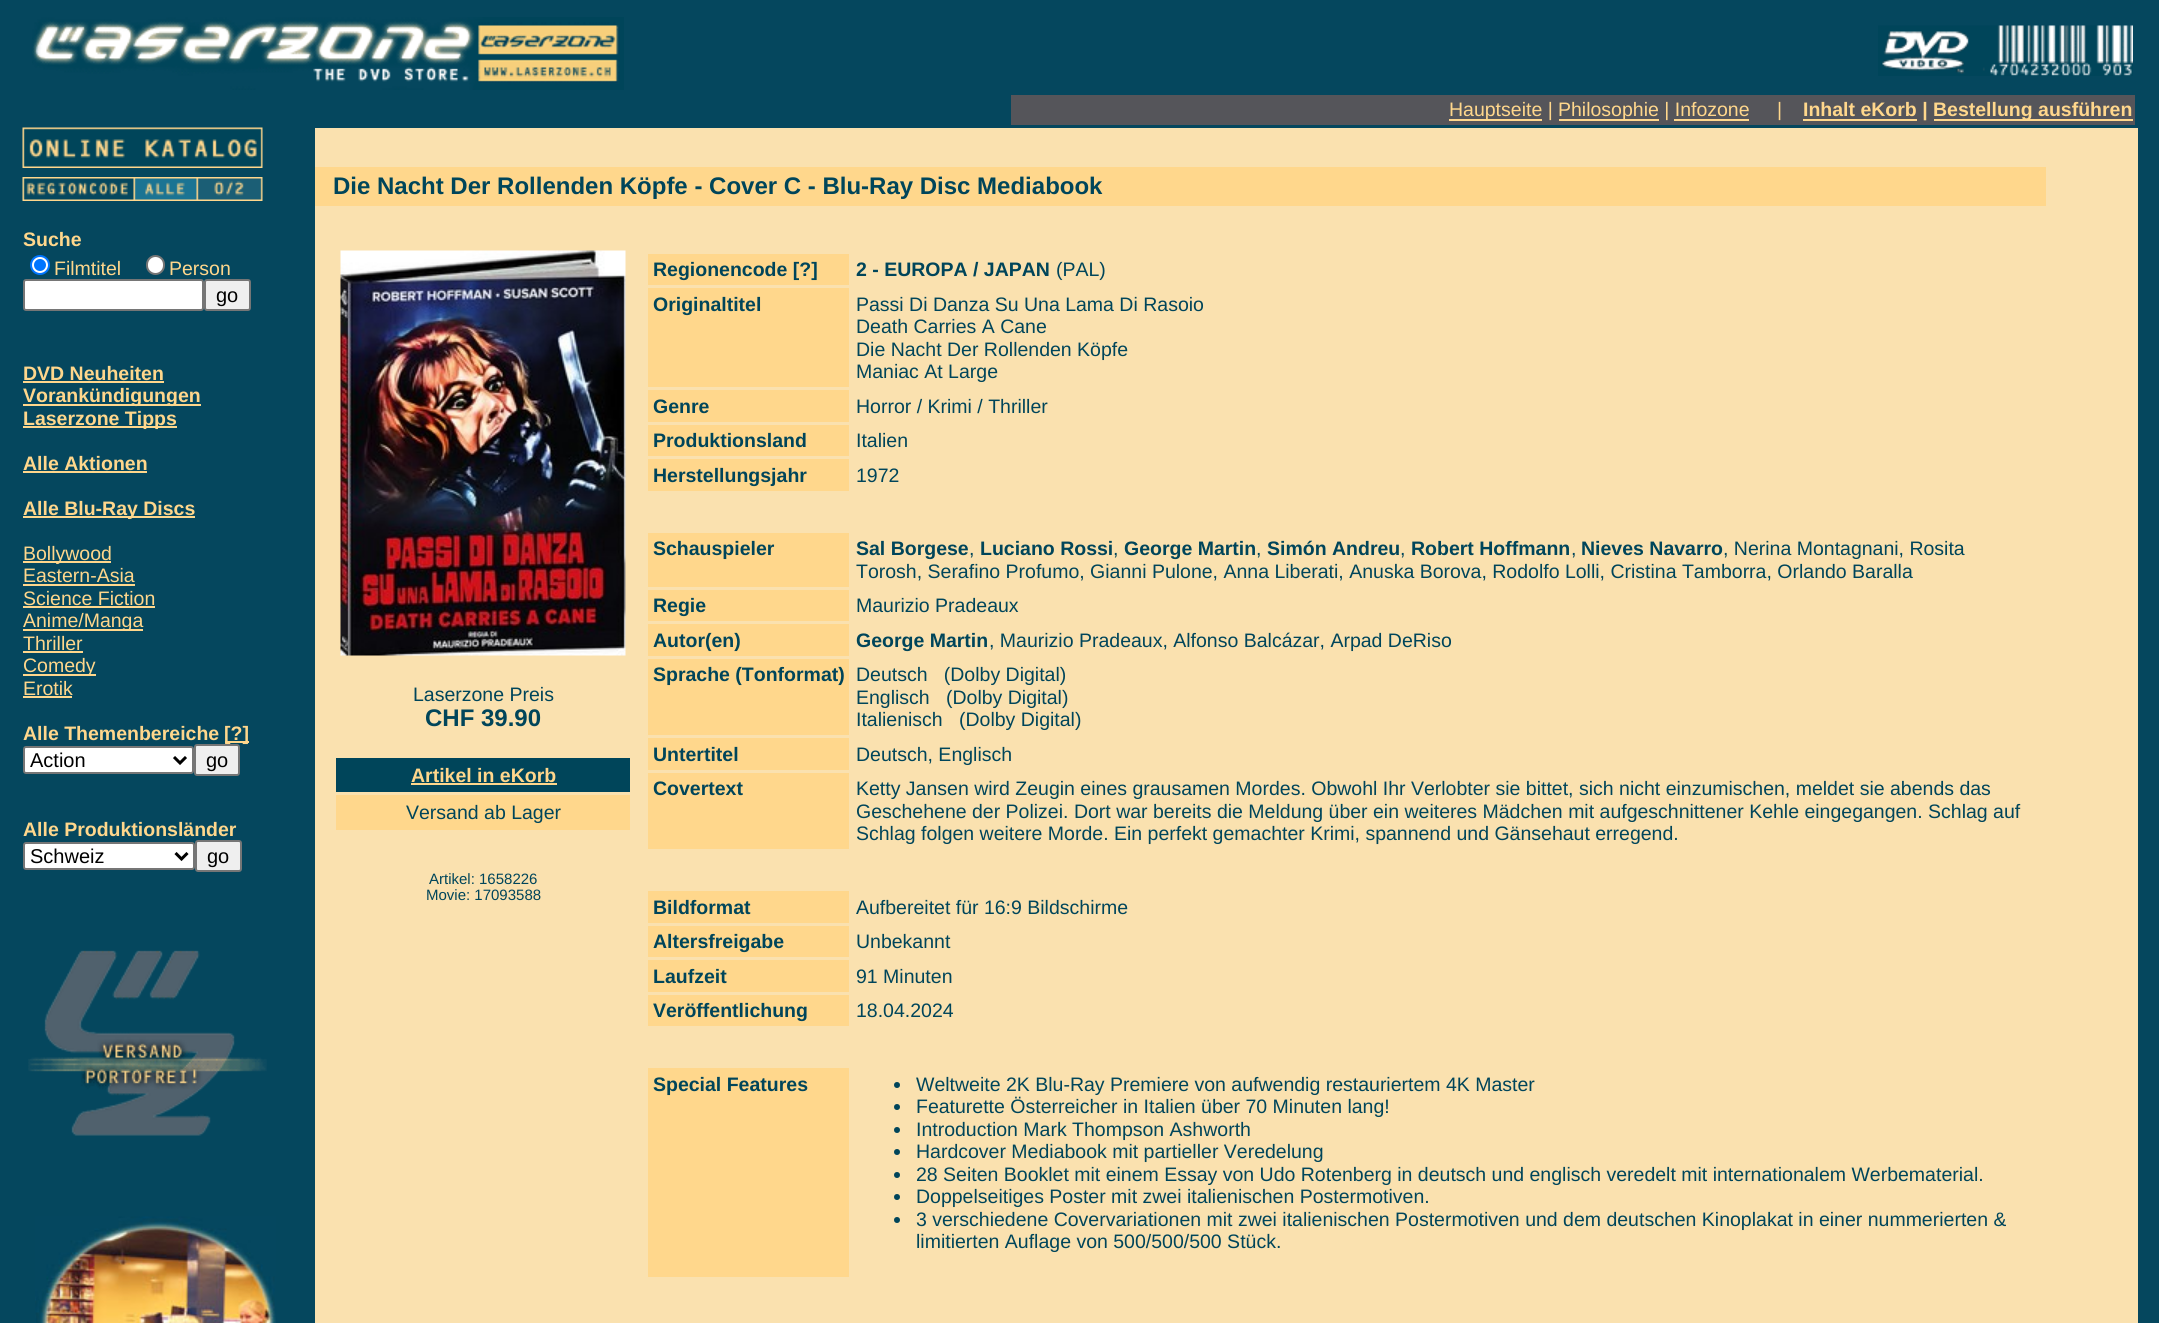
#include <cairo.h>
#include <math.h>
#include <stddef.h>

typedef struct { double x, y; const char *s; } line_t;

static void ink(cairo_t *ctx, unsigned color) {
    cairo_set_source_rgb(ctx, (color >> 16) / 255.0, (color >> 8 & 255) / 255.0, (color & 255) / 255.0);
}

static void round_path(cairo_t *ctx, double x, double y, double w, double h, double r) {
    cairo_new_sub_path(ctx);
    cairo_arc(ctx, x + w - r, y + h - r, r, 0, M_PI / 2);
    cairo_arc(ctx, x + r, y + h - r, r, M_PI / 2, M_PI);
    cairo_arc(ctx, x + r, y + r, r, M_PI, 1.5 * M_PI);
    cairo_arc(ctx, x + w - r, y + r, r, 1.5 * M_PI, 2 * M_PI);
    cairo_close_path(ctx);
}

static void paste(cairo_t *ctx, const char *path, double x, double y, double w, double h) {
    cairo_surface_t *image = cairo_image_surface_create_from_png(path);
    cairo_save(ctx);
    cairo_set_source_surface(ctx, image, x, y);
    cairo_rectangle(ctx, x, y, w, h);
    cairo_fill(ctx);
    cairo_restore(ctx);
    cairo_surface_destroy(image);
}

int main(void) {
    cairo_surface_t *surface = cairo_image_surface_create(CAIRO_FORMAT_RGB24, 2159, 1323);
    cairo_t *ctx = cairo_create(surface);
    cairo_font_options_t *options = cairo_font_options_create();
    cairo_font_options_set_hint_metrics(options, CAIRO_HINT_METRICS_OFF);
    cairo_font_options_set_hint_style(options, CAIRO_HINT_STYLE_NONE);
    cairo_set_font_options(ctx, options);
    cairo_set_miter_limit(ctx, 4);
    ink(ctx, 0x05475E);
    cairo_paint(ctx);
    paste(ctx, "media/1.png", 32, 17, 592, 73);
    paste(ctx, "media/2.png", 1878, 25, 255, 51);
    ink(ctx, 0x55555A);
    cairo_rectangle(ctx, 1011, 95, 1124, 30);
    cairo_fill(ctx);
    ink(ctx, 0xFFD78C);
    cairo_rectangle(ctx, 1449, 119, 93, 2);
    cairo_fill(ctx);
    cairo_select_font_face(ctx, "Liberation Sans", CAIRO_FONT_SLANT_NORMAL, CAIRO_FONT_WEIGHT_NORMAL);
    cairo_set_font_size(ctx, 19.5);
    cairo_move_to(ctx, 1449, 116);
    cairo_show_text(ctx, "Hauptseite |");
    cairo_rectangle(ctx, 1559, 119, 100, 2);
    cairo_fill(ctx);
    cairo_move_to(ctx, 1558, 116);
    cairo_show_text(ctx, "Philosophie | Infozone");
    cairo_rectangle(ctx, 1674, 119, 75, 2);
    cairo_fill(ctx);
    cairo_move_to(ctx, 1777, 116);
    cairo_show_text(ctx, "|");
    cairo_rectangle(ctx, 1803, 119, 114, 2);
    cairo_fill(ctx);
    cairo_select_font_face(ctx, "Liberation Sans", CAIRO_FONT_SLANT_NORMAL, CAIRO_FONT_WEIGHT_BOLD);
    cairo_move_to(ctx, 1803, 116);
    cairo_show_text(ctx, "Inhalt eKorb |");
    cairo_rectangle(ctx, 1934, 119, 199, 2);
    cairo_fill(ctx);
    cairo_move_to(ctx, 1933, 116);
    cairo_show_text(ctx, "Bestellung ausführen");
    paste(ctx, "media/3.png", 22, 127, 241, 41);
    paste(ctx, "media/4.png", 22, 177, 241, 24);
    cairo_move_to(ctx, 23, 246);
    cairo_show_text(ctx, "Suche");
    ink(ctx, 0xFFFFFF);
    cairo_new_path(ctx);
    cairo_arc(ctx, 40, 265, 9, 0, 2 * M_PI);
    cairo_fill_preserve(ctx);
    ink(ctx, 0x0075FF);
    cairo_stroke(ctx);
    cairo_arc(ctx, 40, 265, 6, 0, 2 * M_PI);
    cairo_fill(ctx);
    cairo_select_font_face(ctx, "Liberation Sans", CAIRO_FONT_SLANT_NORMAL, CAIRO_FONT_WEIGHT_NORMAL);
    ink(ctx, 0xFFD78C);
    cairo_move_to(ctx, 54, 275);
    cairo_show_text(ctx, "Filmtitel");
    ink(ctx, 0xFFFFFF);
    round_path(ctx, 147, 256, 17, 18, 8.5);
    cairo_fill_preserve(ctx);
    ink(ctx, 0x767676);
    cairo_stroke(ctx);
    ink(ctx, 0xFFD78C);
    cairo_move_to(ctx, 169, 275);
    cairo_show_text(ctx, "Person");
    ink(ctx, 0xFFFFFF);
    round_path(ctx, 24, 280, 179, 30, 2);
    cairo_fill_preserve(ctx);
    ink(ctx, 0x767676);
    cairo_stroke(ctx);
    ink(ctx, 0xEFEFEF);
    round_path(ctx, 205, 280, 45, 30, 2);
    cairo_fill_preserve(ctx);
    ink(ctx, 0x767676);
    cairo_stroke(ctx);
    cairo_set_font_size(ctx, 20);
    ink(ctx, 0x000000);
    cairo_move_to(ctx, 216, 302);
    cairo_show_text(ctx, "go");
    cairo_select_font_face(ctx, "Liberation Sans", CAIRO_FONT_SLANT_NORMAL, CAIRO_FONT_WEIGHT_BOLD);
    cairo_set_font_size(ctx, 19.5);
    ink(ctx, 0xFFD78C);
    cairo_move_to(ctx, 23, 380);
    cairo_show_text(ctx, "DVD Neuheiten");
    cairo_rectangle(ctx, 23, 381, 141, 2);
    cairo_fill(ctx);
    cairo_rectangle(ctx, 23, 404, 178, 2);
    cairo_fill(ctx);
    cairo_move_to(ctx, 23, 402);
    cairo_show_text(ctx, "Vorankündigungen");
    cairo_rectangle(ctx, 23, 426, 154, 2);
    cairo_fill(ctx);
    cairo_move_to(ctx, 23, 425);
    cairo_show_text(ctx, "Laserzone Tipps");
    cairo_move_to(ctx, 23, 470);
    cairo_show_text(ctx, "Alle Aktionen");
    cairo_rectangle(ctx, 23, 471, 124, 2);
    cairo_fill(ctx);
    cairo_rectangle(ctx, 23, 516, 172, 2);
    cairo_fill(ctx);
    cairo_move_to(ctx, 23, 515);
    cairo_show_text(ctx, "Alle Blu-Ray Discs");
    cairo_rectangle(ctx, 23, 561, 88, 2);
    cairo_fill(ctx);
    cairo_select_font_face(ctx, "Liberation Sans", CAIRO_FONT_SLANT_NORMAL, CAIRO_FONT_WEIGHT_NORMAL);
    cairo_move_to(ctx, 23, 560);
    cairo_show_text(ctx, "Bollywood");
    cairo_move_to(ctx, 23, 582);
    cairo_show_text(ctx, "Eastern-Asia");
    cairo_rectangle(ctx, 23, 584, 112, 2);
    cairo_fill(ctx);
    cairo_move_to(ctx, 23, 605);
    cairo_show_text(ctx, "Science Fiction");
    cairo_rectangle(ctx, 23, 606, 132, 2);
    cairo_fill(ctx);
    cairo_rectangle(ctx, 23, 629, 120, 2);
    cairo_fill(ctx);
    cairo_move_to(ctx, 23, 627);
    cairo_show_text(ctx, "Anime/Manga");
    cairo_move_to(ctx, 23, 650);
    cairo_show_text(ctx, "Thriller");
    cairo_rectangle(ctx, 23, 651, 60, 2);
    cairo_fill(ctx);
    cairo_rectangle(ctx, 23, 674, 73, 2);
    cairo_fill(ctx);
    cairo_move_to(ctx, 23, 672);
    cairo_show_text(ctx, "Comedy");
    cairo_move_to(ctx, 23, 695);
    cairo_show_text(ctx, "Erotik");
    cairo_rectangle(ctx, 23, 696, 49, 2);
    cairo_fill(ctx);
    cairo_select_font_face(ctx, "Liberation Sans", CAIRO_FONT_SLANT_NORMAL, CAIRO_FONT_WEIGHT_BOLD);
    cairo_move_to(ctx, 23, 740);
    cairo_show_text(ctx, "Alle Themenbereiche");
    cairo_rectangle(ctx, 225, 741, 24, 2);
    cairo_fill(ctx);
    cairo_move_to(ctx, 224, 740);
    cairo_show_text(ctx, "[?]");
    ink(ctx, 0xFFFFFF);
    round_path(ctx, 24, 747, 169, 26, 2);
    cairo_fill_preserve(ctx);
    ink(ctx, 0x767676);
    cairo_stroke(ctx);
    cairo_new_path(ctx);
    cairo_move_to(ctx, 174, 757);
    cairo_line_to(ctx, 180, 763);
    cairo_line_to(ctx, 186, 757);
    ink(ctx, 0x000000);
    cairo_set_line_width(ctx, 3);
    cairo_stroke(ctx);
    cairo_select_font_face(ctx, "Liberation Sans", CAIRO_FONT_SLANT_NORMAL, CAIRO_FONT_WEIGHT_NORMAL);
    cairo_set_font_size(ctx, 20);
    cairo_move_to(ctx, 30, 767);
    cairo_show_text(ctx, "Action");
    ink(ctx, 0xEFEFEF);
    round_path(ctx, 195, 745, 44, 30, 2);
    cairo_fill_preserve(ctx);
    ink(ctx, 0x767676);
    cairo_set_line_width(ctx, 2);
    cairo_stroke(ctx);
    ink(ctx, 0x000000);
    cairo_move_to(ctx, 206, 767);
    cairo_show_text(ctx, "go");
    cairo_select_font_face(ctx, "Liberation Sans", CAIRO_FONT_SLANT_NORMAL, CAIRO_FONT_WEIGHT_BOLD);
    cairo_set_font_size(ctx, 19.5);
    ink(ctx, 0xFFD78C);
    cairo_move_to(ctx, 23, 836);
    cairo_show_text(ctx, "Alle Produktionsländer");
    ink(ctx, 0xFFFFFF);
    round_path(ctx, 24, 843, 170, 26, 2);
    cairo_fill_preserve(ctx);
    ink(ctx, 0x767676);
    cairo_stroke(ctx);
    cairo_new_path(ctx);
    cairo_move_to(ctx, 175.5, 853);
    cairo_line_to(ctx, 181.5, 859);
    cairo_line_to(ctx, 187.5, 853);
    ink(ctx, 0x000000);
    cairo_set_line_width(ctx, 3);
    cairo_stroke(ctx);
    cairo_select_font_face(ctx, "Liberation Sans", CAIRO_FONT_SLANT_NORMAL, CAIRO_FONT_WEIGHT_NORMAL);
    cairo_set_font_size(ctx, 20);
    cairo_move_to(ctx, 30, 863);
    cairo_show_text(ctx, "Schweiz");
    ink(ctx, 0xEFEFEF);
    round_path(ctx, 196, 841, 45, 30, 2);
    cairo_fill_preserve(ctx);
    ink(ctx, 0x767676);
    cairo_set_line_width(ctx, 2);
    cairo_stroke(ctx);
    ink(ctx, 0x000000);
    cairo_move_to(ctx, 207, 863);
    cairo_show_text(ctx, "go");
    paste(ctx, "media/5.png", 28, 950, 239, 186);
    paste(ctx, "media/6.png", 35, 1216, 241, 107);
    ink(ctx, 0xFAE1AF);
    cairo_rectangle(ctx, 315, 128, 1823, 1195);
    cairo_fill(ctx);
    ink(ctx, 0xFFD78C);
    cairo_rectangle(ctx, 315, 167, 1731, 39);
    cairo_fill(ctx);
    cairo_select_font_face(ctx, "Liberation Sans", CAIRO_FONT_SLANT_NORMAL, CAIRO_FONT_WEIGHT_BOLD);
    cairo_set_font_size(ctx, 24);
    ink(ctx, 0x00455A);
    cairo_move_to(ctx, 333, 194);
    cairo_show_text(ctx, "Die Nacht Der Rollenden Köpfe - Cover C - Blu-Ray Disc Mediabook");
    paste(ctx, "media/7.png", 340, 250, 286, 406);
    cairo_select_font_face(ctx, "Liberation Sans", CAIRO_FONT_SLANT_NORMAL, CAIRO_FONT_WEIGHT_NORMAL);
    cairo_set_font_size(ctx, 19.5);
    cairo_move_to(ctx, 413, 701);
    cairo_show_text(ctx, "Laserzone Preis");
    cairo_select_font_face(ctx, "Liberation Sans", CAIRO_FONT_SLANT_NORMAL, CAIRO_FONT_WEIGHT_BOLD);
    cairo_set_font_size(ctx, 24);
    cairo_move_to(ctx, 425, 726);
    cairo_show_text(ctx, "CHF 39.90");
    cairo_rectangle(ctx, 336, 758, 294, 34);
    cairo_fill(ctx);
    cairo_set_font_size(ctx, 19.5);
    ink(ctx, 0xFFD78C);
    cairo_move_to(ctx, 411, 782);
    cairo_show_text(ctx, "Artikel in eKorb");
    cairo_rectangle(ctx, 411, 783, 146, 2);
    cairo_fill(ctx);
    cairo_rectangle(ctx, 336, 795, 294, 35);
    cairo_fill(ctx);
    cairo_select_font_face(ctx, "Liberation Sans", CAIRO_FONT_SLANT_NORMAL, CAIRO_FONT_WEIGHT_NORMAL);
    ink(ctx, 0x00455A);
    cairo_move_to(ctx, 406, 819);
    cairo_show_text(ctx, "Versand ab Lager");
    cairo_set_font_size(ctx, 15);
    cairo_move_to(ctx, 429, 884);
    cairo_show_text(ctx, "Artikel: 1658226");
    cairo_move_to(ctx, 426, 900);
    cairo_show_text(ctx, "Movie: 17093588");
    ink(ctx, 0xFFD78C);
    cairo_rectangle(ctx, 648, 254, 201, 31);
    cairo_fill(ctx);
    cairo_select_font_face(ctx, "Liberation Sans", CAIRO_FONT_SLANT_NORMAL, CAIRO_FONT_WEIGHT_BOLD);
    cairo_set_font_size(ctx, 19.5);
    ink(ctx, 0x00455A);
    cairo_move_to(ctx, 653, 276);
    cairo_show_text(ctx, "Regionencode [?]");
    cairo_move_to(ctx, 856, 276);
    cairo_show_text(ctx, "2 - EUROPA / JAPAN");
    cairo_select_font_face(ctx, "Liberation Sans", CAIRO_FONT_SLANT_NORMAL, CAIRO_FONT_WEIGHT_NORMAL);
    cairo_move_to(ctx, 1056, 276);
    cairo_show_text(ctx, "(PAL)");
    ink(ctx, 0xFFD78C);
    cairo_rectangle(ctx, 648, 288, 201, 99);
    cairo_fill(ctx);
    cairo_select_font_face(ctx, "Liberation Sans", CAIRO_FONT_SLANT_NORMAL, CAIRO_FONT_WEIGHT_BOLD);
    ink(ctx, 0x00455A);
    cairo_move_to(ctx, 653, 311);
    cairo_show_text(ctx, "Originaltitel");
    cairo_select_font_face(ctx, "Liberation Sans", CAIRO_FONT_SLANT_NORMAL, CAIRO_FONT_WEIGHT_NORMAL);
    {
        static const line_t items[] = {
            {856, 311, "Passi Di Danza Su Una Lama Di Rasoio"},
            {856, 333, "Death Carries A Cane"},
            {856, 356, "Die Nacht Der Rollenden Köpfe"},
            {856, 378, "Maniac At Large"},
        };
        for (size_t i = 0; i < sizeof items / sizeof *items; i++) {
            cairo_move_to(ctx, items[i].x, items[i].y);
            cairo_show_text(ctx, items[i].s);
        }
    }
    ink(ctx, 0xFFD78C);
    cairo_rectangle(ctx, 648, 390, 201, 32);
    cairo_fill(ctx);
    cairo_select_font_face(ctx, "Liberation Sans", CAIRO_FONT_SLANT_NORMAL, CAIRO_FONT_WEIGHT_BOLD);
    ink(ctx, 0x00455A);
    cairo_move_to(ctx, 653, 413);
    cairo_show_text(ctx, "Genre");
    cairo_select_font_face(ctx, "Liberation Sans", CAIRO_FONT_SLANT_NORMAL, CAIRO_FONT_WEIGHT_NORMAL);
    cairo_move_to(ctx, 856, 413);
    cairo_show_text(ctx, "Horror / Krimi / Thriller");
    ink(ctx, 0xFFD78C);
    cairo_rectangle(ctx, 648, 425, 201, 31);
    cairo_fill(ctx);
    cairo_select_font_face(ctx, "Liberation Sans", CAIRO_FONT_SLANT_NORMAL, CAIRO_FONT_WEIGHT_BOLD);
    ink(ctx, 0x00455A);
    cairo_move_to(ctx, 653, 447);
    cairo_show_text(ctx, "Produktionsland");
    cairo_select_font_face(ctx, "Liberation Sans", CAIRO_FONT_SLANT_NORMAL, CAIRO_FONT_WEIGHT_NORMAL);
    cairo_move_to(ctx, 856, 447);
    cairo_show_text(ctx, "Italien");
    ink(ctx, 0xFFD78C);
    cairo_rectangle(ctx, 648, 459, 201, 32);
    cairo_fill(ctx);
    cairo_select_font_face(ctx, "Liberation Sans", CAIRO_FONT_SLANT_NORMAL, CAIRO_FONT_WEIGHT_BOLD);
    ink(ctx, 0x00455A);
    cairo_move_to(ctx, 653, 482);
    cairo_show_text(ctx, "Herstellungsjahr");
    cairo_select_font_face(ctx, "Liberation Sans", CAIRO_FONT_SLANT_NORMAL, CAIRO_FONT_WEIGHT_NORMAL);
    cairo_move_to(ctx, 856, 482);
    cairo_show_text(ctx, "1972");
    ink(ctx, 0xFFD78C);
    cairo_rectangle(ctx, 648, 533, 201, 54);
    cairo_fill(ctx);
    cairo_select_font_face(ctx, "Liberation Sans", CAIRO_FONT_SLANT_NORMAL, CAIRO_FONT_WEIGHT_BOLD);
    ink(ctx, 0x00455A);
    cairo_move_to(ctx, 653, 555);
    cairo_show_text(ctx, "Schauspieler");
    cairo_move_to(ctx, 856, 555);
    cairo_show_text(ctx, "Sal Borgese");
    cairo_select_font_face(ctx, "Liberation Sans", CAIRO_FONT_SLANT_NORMAL, CAIRO_FONT_WEIGHT_NORMAL);
    cairo_move_to(ctx, 969, 555);
    cairo_show_text(ctx, ",");
    cairo_select_font_face(ctx, "Liberation Sans", CAIRO_FONT_SLANT_NORMAL, CAIRO_FONT_WEIGHT_BOLD);
    cairo_move_to(ctx, 980, 555);
    cairo_show_text(ctx, "Luciano Rossi");
    cairo_select_font_face(ctx, "Liberation Sans", CAIRO_FONT_SLANT_NORMAL, CAIRO_FONT_WEIGHT_NORMAL);
    cairo_move_to(ctx, 1113, 555);
    cairo_show_text(ctx, ",");
    cairo_select_font_face(ctx, "Liberation Sans", CAIRO_FONT_SLANT_NORMAL, CAIRO_FONT_WEIGHT_BOLD);
    cairo_move_to(ctx, 1124, 555);
    cairo_show_text(ctx, "George Martin");
    cairo_select_font_face(ctx, "Liberation Sans", CAIRO_FONT_SLANT_NORMAL, CAIRO_FONT_WEIGHT_NORMAL);
    cairo_move_to(ctx, 1256, 555);
    cairo_show_text(ctx, ",");
    cairo_select_font_face(ctx, "Liberation Sans", CAIRO_FONT_SLANT_NORMAL, CAIRO_FONT_WEIGHT_BOLD);
    cairo_move_to(ctx, 1267, 555);
    cairo_show_text(ctx, "Simón Andreu");
    cairo_select_font_face(ctx, "Liberation Sans", CAIRO_FONT_SLANT_NORMAL, CAIRO_FONT_WEIGHT_NORMAL);
    cairo_move_to(ctx, 1400, 555);
    cairo_show_text(ctx, ",");
    cairo_select_font_face(ctx, "Liberation Sans", CAIRO_FONT_SLANT_NORMAL, CAIRO_FONT_WEIGHT_BOLD);
    cairo_move_to(ctx, 1411, 555);
    cairo_show_text(ctx, "Robert Hoffmann");
    cairo_select_font_face(ctx, "Liberation Sans", CAIRO_FONT_SLANT_NORMAL, CAIRO_FONT_WEIGHT_NORMAL);
    cairo_move_to(ctx, 1571, 555);
    cairo_show_text(ctx, ",");
    cairo_select_font_face(ctx, "Liberation Sans", CAIRO_FONT_SLANT_NORMAL, CAIRO_FONT_WEIGHT_BOLD);
    cairo_move_to(ctx, 1581, 555);
    cairo_show_text(ctx, "Nieves Navarro");
    cairo_select_font_face(ctx, "Liberation Sans", CAIRO_FONT_SLANT_NORMAL, CAIRO_FONT_WEIGHT_NORMAL);
    cairo_move_to(ctx, 1723, 555);
    cairo_show_text(ctx, ", Nerina Montagnani, Rosita");
    cairo_move_to(ctx, 856, 578);
    cairo_show_text(ctx, "Torosh, Serafino Profumo, Gianni Pulone, Anna Liberati, Anuska Borova, Rodolfo Lolli, Cristina Tamborra, Orlando Baralla");
    ink(ctx, 0xFFD78C);
    cairo_rectangle(ctx, 648, 590, 201, 31);
    cairo_fill(ctx);
    cairo_select_font_face(ctx, "Liberation Sans", CAIRO_FONT_SLANT_NORMAL, CAIRO_FONT_WEIGHT_BOLD);
    ink(ctx, 0x00455A);
    cairo_move_to(ctx, 653, 612);
    cairo_show_text(ctx, "Regie");
    cairo_select_font_face(ctx, "Liberation Sans", CAIRO_FONT_SLANT_NORMAL, CAIRO_FONT_WEIGHT_NORMAL);
    cairo_move_to(ctx, 856, 612);
    cairo_show_text(ctx, "Maurizio Pradeaux");
    ink(ctx, 0xFFD78C);
    cairo_rectangle(ctx, 648, 624, 201, 32);
    cairo_fill(ctx);
    cairo_select_font_face(ctx, "Liberation Sans", CAIRO_FONT_SLANT_NORMAL, CAIRO_FONT_WEIGHT_BOLD);
    ink(ctx, 0x00455A);
    cairo_move_to(ctx, 653, 647);
    cairo_show_text(ctx, "Autor(en)");
    cairo_move_to(ctx, 856, 647);
    cairo_show_text(ctx, "George Martin");
    cairo_select_font_face(ctx, "Liberation Sans", CAIRO_FONT_SLANT_NORMAL, CAIRO_FONT_WEIGHT_NORMAL);
    cairo_move_to(ctx, 989, 647);
    cairo_show_text(ctx, ", Maurizio Pradeaux, Alfonso Balcázar, Arpad DeRiso");
    ink(ctx, 0xFFD78C);
    cairo_rectangle(ctx, 648, 659, 201, 76);
    cairo_fill(ctx);
    cairo_select_font_face(ctx, "Liberation Sans", CAIRO_FONT_SLANT_NORMAL, CAIRO_FONT_WEIGHT_BOLD);
    ink(ctx, 0x00455A);
    cairo_move_to(ctx, 653, 681);
    cairo_show_text(ctx, "Sprache (Tonformat)");
    cairo_select_font_face(ctx, "Liberation Sans", CAIRO_FONT_SLANT_NORMAL, CAIRO_FONT_WEIGHT_NORMAL);
    {
        static const line_t items[] = {
            {856, 681, "Deutsch   (Dolby Digital)"},
            {856, 704, "Englisch   (Dolby Digital)"},
            {856, 726, "Italienisch   (Dolby Digital)"},
        };
        for (size_t i = 0; i < sizeof items / sizeof *items; i++) {
            cairo_move_to(ctx, items[i].x, items[i].y);
            cairo_show_text(ctx, items[i].s);
        }
    }
    ink(ctx, 0xFFD78C);
    cairo_rectangle(ctx, 648, 738, 201, 32);
    cairo_fill(ctx);
    cairo_select_font_face(ctx, "Liberation Sans", CAIRO_FONT_SLANT_NORMAL, CAIRO_FONT_WEIGHT_BOLD);
    ink(ctx, 0x00455A);
    cairo_move_to(ctx, 653, 761);
    cairo_show_text(ctx, "Untertitel");
    cairo_select_font_face(ctx, "Liberation Sans", CAIRO_FONT_SLANT_NORMAL, CAIRO_FONT_WEIGHT_NORMAL);
    cairo_move_to(ctx, 856, 761);
    cairo_show_text(ctx, "Deutsch, Englisch");
    ink(ctx, 0xFFD78C);
    cairo_rectangle(ctx, 648, 773, 201, 76);
    cairo_fill(ctx);
    cairo_select_font_face(ctx, "Liberation Sans", CAIRO_FONT_SLANT_NORMAL, CAIRO_FONT_WEIGHT_BOLD);
    ink(ctx, 0x00455A);
    cairo_move_to(ctx, 653, 795);
    cairo_show_text(ctx, "Covertext");
    cairo_select_font_face(ctx, "Liberation Sans", CAIRO_FONT_SLANT_NORMAL, CAIRO_FONT_WEIGHT_NORMAL);
    {
        static const line_t items[] = {
            {856, 795, "Ketty Jansen wird Zeugin eines grausamen Mordes. Obwohl Ihr Verlobter sie bittet, sich nicht einzumischen, meldet sie abends das"},
            {856, 818, "Geschehene der Polizei. Dort war bereits die Meldung über ein weiteres Mädchen mit aufgeschnittener Kehle eingegangen. Schlag auf"},
            {856, 840, "Schlag folgen weitere Morde. Ein perfekt gemachter Krimi, spannend und Gänsehaut erregend."},
        };
        for (size_t i = 0; i < sizeof items / sizeof *items; i++) {
            cairo_move_to(ctx, items[i].x, items[i].y);
            cairo_show_text(ctx, items[i].s);
        }
    }
    ink(ctx, 0xFFD78C);
    cairo_rectangle(ctx, 648, 891, 201, 32);
    cairo_fill(ctx);
    cairo_select_font_face(ctx, "Liberation Sans", CAIRO_FONT_SLANT_NORMAL, CAIRO_FONT_WEIGHT_BOLD);
    ink(ctx, 0x00455A);
    cairo_move_to(ctx, 653, 914);
    cairo_show_text(ctx, "Bildformat");
    cairo_select_font_face(ctx, "Liberation Sans", CAIRO_FONT_SLANT_NORMAL, CAIRO_FONT_WEIGHT_NORMAL);
    cairo_move_to(ctx, 856, 914);
    cairo_show_text(ctx, "Aufbereitet für 16:9 Bildschirme");
    ink(ctx, 0xFFD78C);
    cairo_rectangle(ctx, 648, 926, 201, 31);
    cairo_fill(ctx);
    cairo_select_font_face(ctx, "Liberation Sans", CAIRO_FONT_SLANT_NORMAL, CAIRO_FONT_WEIGHT_BOLD);
    ink(ctx, 0x00455A);
    cairo_move_to(ctx, 653, 948);
    cairo_show_text(ctx, "Altersfreigabe");
    cairo_select_font_face(ctx, "Liberation Sans", CAIRO_FONT_SLANT_NORMAL, CAIRO_FONT_WEIGHT_NORMAL);
    cairo_move_to(ctx, 856, 948);
    cairo_show_text(ctx, "Unbekannt");
    ink(ctx, 0xFFD78C);
    cairo_rectangle(ctx, 648, 960, 201, 32);
    cairo_fill(ctx);
    cairo_select_font_face(ctx, "Liberation Sans", CAIRO_FONT_SLANT_NORMAL, CAIRO_FONT_WEIGHT_BOLD);
    ink(ctx, 0x00455A);
    cairo_move_to(ctx, 653, 983);
    cairo_show_text(ctx, "Laufzeit");
    cairo_select_font_face(ctx, "Liberation Sans", CAIRO_FONT_SLANT_NORMAL, CAIRO_FONT_WEIGHT_NORMAL);
    cairo_move_to(ctx, 856, 983);
    cairo_show_text(ctx, "91 Minuten");
    ink(ctx, 0xFFD78C);
    cairo_rectangle(ctx, 648, 995, 201, 31);
    cairo_fill(ctx);
    cairo_select_font_face(ctx, "Liberation Sans", CAIRO_FONT_SLANT_NORMAL, CAIRO_FONT_WEIGHT_BOLD);
    ink(ctx, 0x00455A);
    cairo_move_to(ctx, 653, 1017);
    cairo_show_text(ctx, "Veröffentlichung");
    cairo_select_font_face(ctx, "Liberation Sans", CAIRO_FONT_SLANT_NORMAL, CAIRO_FONT_WEIGHT_NORMAL);
    cairo_move_to(ctx, 856, 1017);
    cairo_show_text(ctx, "18.04.2024");
    ink(ctx, 0xFFD78C);
    cairo_rectangle(ctx, 648, 1068, 201, 209);
    cairo_fill(ctx);
    cairo_select_font_face(ctx, "Liberation Sans", CAIRO_FONT_SLANT_NORMAL, CAIRO_FONT_WEIGHT_BOLD);
    ink(ctx, 0x00455A);
    cairo_move_to(ctx, 653, 1091);
    cairo_show_text(ctx, "Special Features");
    cairo_new_path(ctx);
    cairo_arc(ctx, 897, 1085, 3, 0, 2 * M_PI);
    cairo_fill(ctx);
    cairo_select_font_face(ctx, "Liberation Sans", CAIRO_FONT_SLANT_NORMAL, CAIRO_FONT_WEIGHT_NORMAL);
    cairo_move_to(ctx, 916, 1091);
    cairo_show_text(ctx, "Weltweite 2K Blu-Ray Premiere von aufwendig restauriertem 4K Master");
    cairo_new_path(ctx);
    cairo_arc(ctx, 897, 1107, 3, 0, 2 * M_PI);
    cairo_fill(ctx);
    cairo_move_to(ctx, 916, 1113);
    cairo_show_text(ctx, "Featurette Österreicher in Italien über 70 Minuten lang!");
    cairo_new_path(ctx);
    cairo_arc(ctx, 897, 1130, 3, 0, 2 * M_PI);
    cairo_fill(ctx);
    cairo_move_to(ctx, 916, 1136);
    cairo_show_text(ctx, "Introduction Mark Thompson Ashworth");
    cairo_new_path(ctx);
    cairo_arc(ctx, 897, 1152, 3, 0, 2 * M_PI);
    cairo_fill(ctx);
    cairo_move_to(ctx, 916, 1158);
    cairo_show_text(ctx, "Hardcover Mediabook mit partieller Veredelung");
    cairo_new_path(ctx);
    cairo_arc(ctx, 897, 1175, 3, 0, 2 * M_PI);
    cairo_fill(ctx);
    cairo_move_to(ctx, 916, 1181);
    cairo_show_text(ctx, "28 Seiten Booklet mit einem Essay von Udo Rotenberg in deutsch und englisch veredelt mit internationalem Werbematerial.");
    cairo_new_path(ctx);
    cairo_arc(ctx, 897, 1197, 3, 0, 2 * M_PI);
    cairo_fill(ctx);
    cairo_move_to(ctx, 916, 1203);
    cairo_show_text(ctx, "Doppelseitiges Poster mit zwei italienischen Postermotiven.");
    cairo_new_path(ctx);
    cairo_arc(ctx, 897, 1220, 3, 0, 2 * M_PI);
    cairo_fill(ctx);
    cairo_move_to(ctx, 916, 1226);
    cairo_show_text(ctx, "3 verschiedene Covervariationen mit zwei italienischen Postermotiven und dem deutschen Kinoplakat in einer nummerierten &");
    cairo_move_to(ctx, 916, 1248);
    cairo_show_text(ctx, "limitierten Auflage von 500/500/500 Stück.");
    cairo_surface_write_to_png(surface, "image.png");
    cairo_font_options_destroy(options);
    cairo_destroy(ctx);
    cairo_surface_destroy(surface);
    return 0;
}
